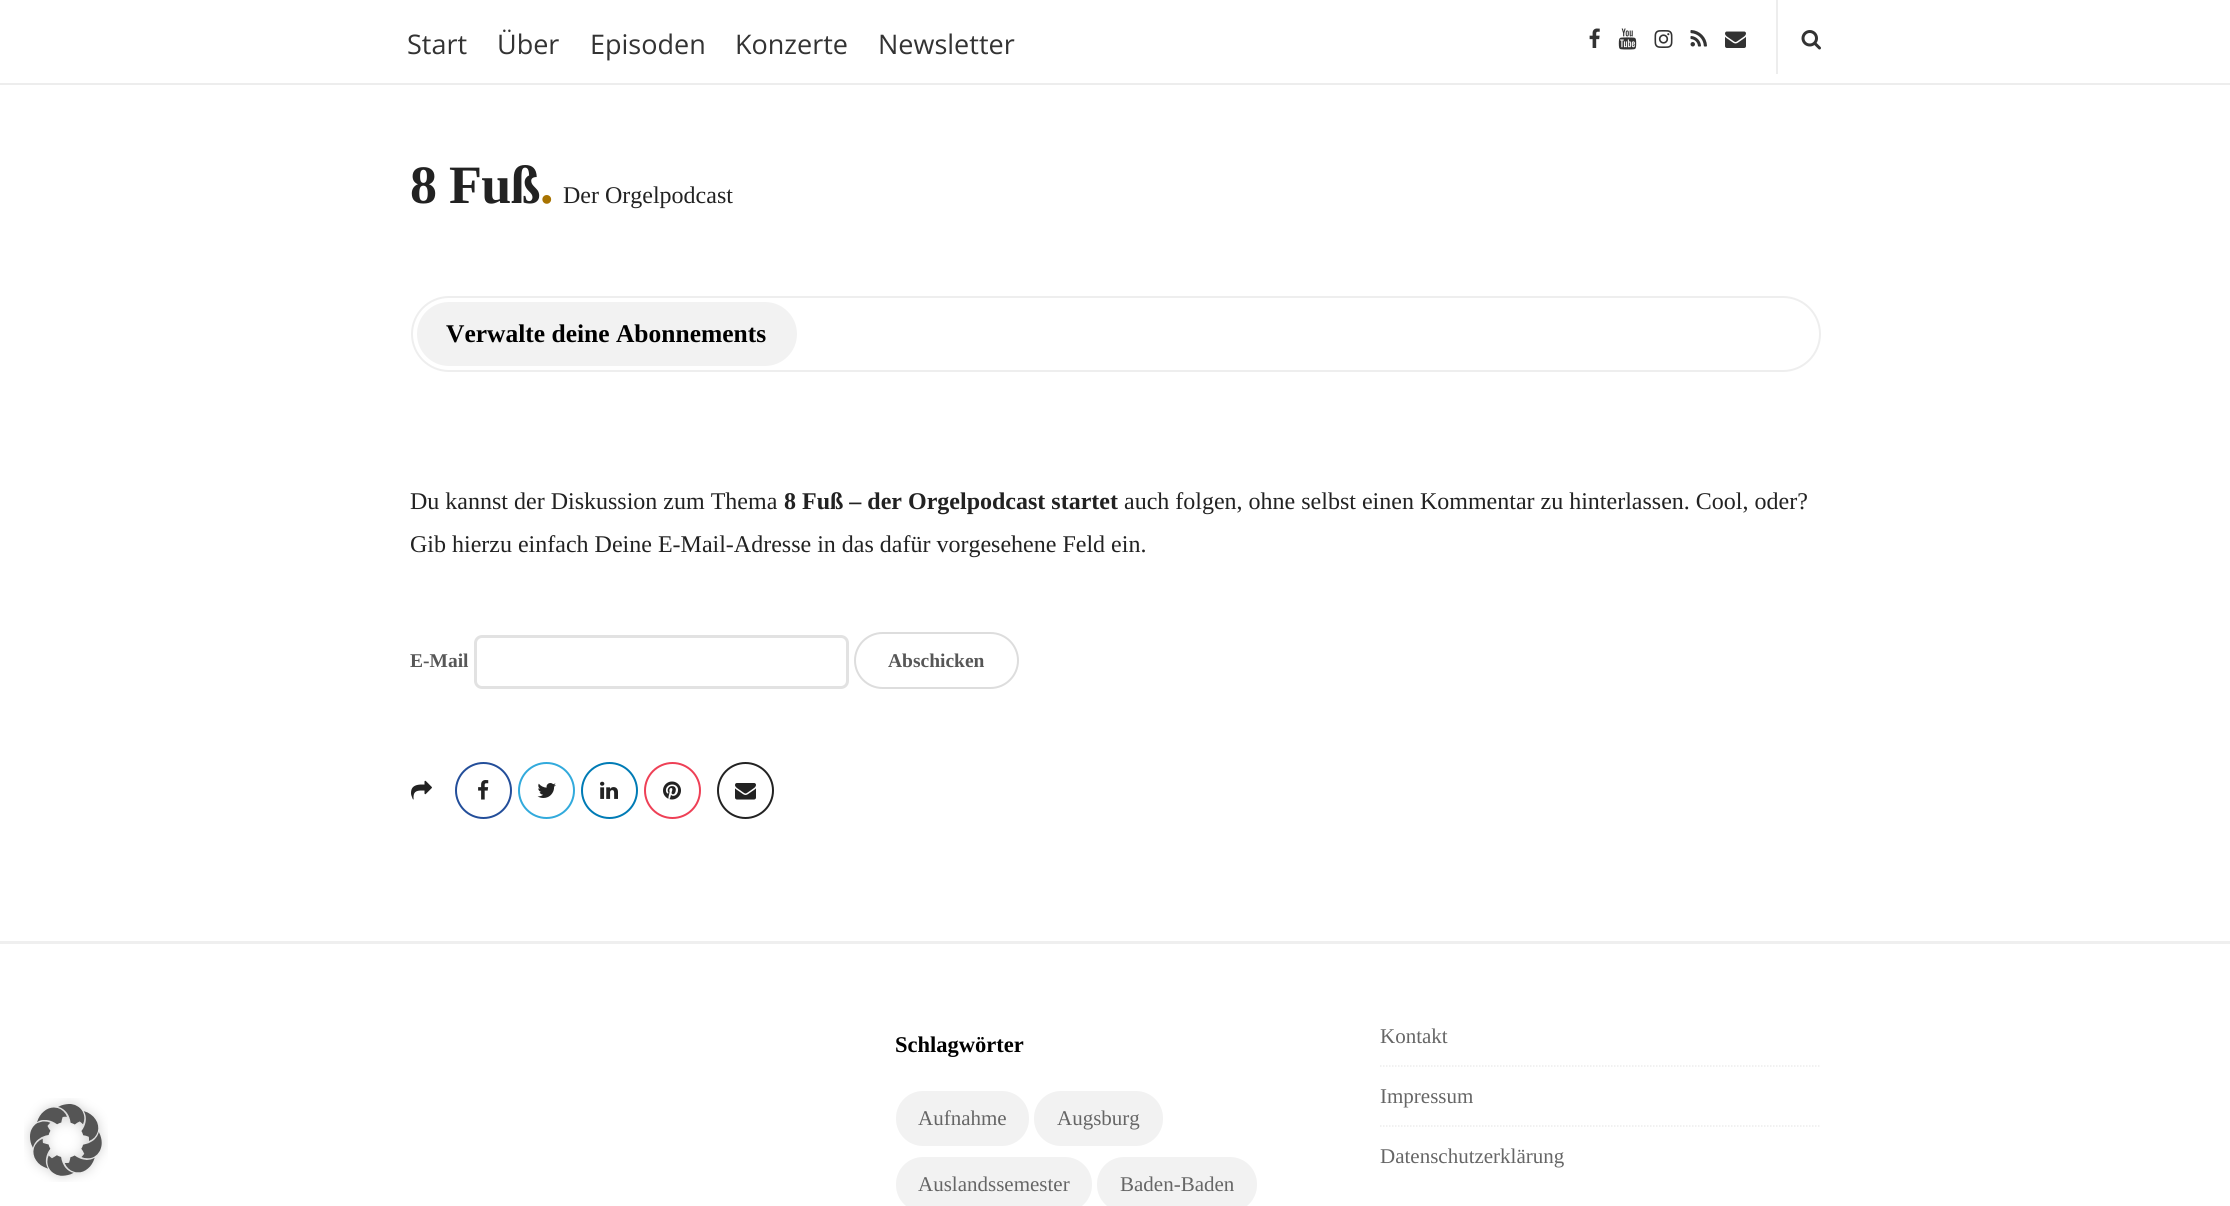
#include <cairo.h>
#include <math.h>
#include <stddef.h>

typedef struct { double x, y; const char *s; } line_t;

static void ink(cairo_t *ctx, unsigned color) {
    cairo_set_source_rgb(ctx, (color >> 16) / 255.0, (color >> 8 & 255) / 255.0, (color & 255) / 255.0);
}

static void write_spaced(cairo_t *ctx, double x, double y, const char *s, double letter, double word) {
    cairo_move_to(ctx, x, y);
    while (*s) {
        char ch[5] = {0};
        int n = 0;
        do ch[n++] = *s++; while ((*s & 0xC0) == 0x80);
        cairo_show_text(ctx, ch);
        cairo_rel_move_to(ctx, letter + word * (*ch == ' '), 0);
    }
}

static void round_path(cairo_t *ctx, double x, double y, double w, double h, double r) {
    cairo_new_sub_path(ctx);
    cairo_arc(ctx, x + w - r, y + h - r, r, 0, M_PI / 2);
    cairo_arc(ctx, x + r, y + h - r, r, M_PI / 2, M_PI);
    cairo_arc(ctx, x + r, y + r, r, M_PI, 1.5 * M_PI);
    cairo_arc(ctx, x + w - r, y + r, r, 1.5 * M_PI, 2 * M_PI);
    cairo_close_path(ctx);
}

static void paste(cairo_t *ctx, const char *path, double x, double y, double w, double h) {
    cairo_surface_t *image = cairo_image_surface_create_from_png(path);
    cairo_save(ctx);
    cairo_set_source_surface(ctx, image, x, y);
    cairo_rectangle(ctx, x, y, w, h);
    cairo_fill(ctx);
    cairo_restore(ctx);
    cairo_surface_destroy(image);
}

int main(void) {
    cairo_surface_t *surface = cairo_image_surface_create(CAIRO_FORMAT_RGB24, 2230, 1206);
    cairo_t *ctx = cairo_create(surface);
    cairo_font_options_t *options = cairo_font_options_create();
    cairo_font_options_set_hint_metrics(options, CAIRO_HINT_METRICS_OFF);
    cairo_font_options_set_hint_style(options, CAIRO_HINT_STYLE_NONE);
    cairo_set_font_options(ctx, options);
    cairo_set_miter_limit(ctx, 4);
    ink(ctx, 0xFFFFFF);
    cairo_paint(ctx);
    ink(ctx, 0xEDEDED);
    cairo_rectangle(ctx, 0, 83, 2230, 2);
    cairo_fill(ctx);
    cairo_select_font_face(ctx, "Open Sans", CAIRO_FONT_SLANT_NORMAL, CAIRO_FONT_WEIGHT_NORMAL);
    cairo_set_font_size(ctx, 27);
    ink(ctx, 0x333333);
    {
        static const line_t items[] = {
            {407, 54, "Start"},
            {497, 54, "Über"},
            {590, 54, "Episoden"},
            {735, 54, "Konzerte"},
            {878, 54, "Newsletter"},
        };
        for (size_t i = 0; i < sizeof items / sizeof *items; i++) {
            cairo_move_to(ctx, items[i].x, items[i].y);
            cairo_show_text(ctx, items[i].s);
        }
    }
    paste(ctx, "media/1.png", 1589, 28, 11, 20);
    paste(ctx, "media/2.png", 1618, 28, 19, 22);
    paste(ctx, "media/3.png", 1654, 30, 19, 18);
    paste(ctx, "media/4.png", 1690, 30, 17, 17);
    paste(ctx, "media/5.png", 1725, 31, 21, 17);
    ink(ctx, 0xEDEDED);
    cairo_rectangle(ctx, 1776, 0, 2, 74);
    cairo_fill(ctx);
    paste(ctx, "media/6.png", 1801, 30, 20, 20);
    paste(ctx, "media/7.png", 24, 1098, 84, 84);
    cairo_select_font_face(ctx, "Liberation Serif", CAIRO_FONT_SLANT_NORMAL, CAIRO_FONT_WEIGHT_BOLD);
    cairo_set_font_size(ctx, 54);
    ink(ctx, 0x222222);
    write_spaced(ctx, 410, 203, "8 Fuß", -0.75, 0);
    ink(ctx, 0xA87300);
    write_spaced(ctx, 540, 203, ".", -0.75, 0);
    cairo_select_font_face(ctx, "Liberation Serif", CAIRO_FONT_SLANT_NORMAL, CAIRO_FONT_WEIGHT_NORMAL);
    cairo_set_font_size(ctx, 24);
    ink(ctx, 0x222222);
    cairo_move_to(ctx, 563, 203);
    cairo_show_text(ctx, "Der Orgelpodcast");
    round_path(ctx, 412, 297, 1408, 74, 37);
    ink(ctx, 0xEEEEEE);
    cairo_stroke(ctx);
    ink(ctx, 0xF2F2F2);
    round_path(ctx, 417, 302, 380, 64, 32);
    cairo_fill(ctx);
    cairo_select_font_face(ctx, "Liberation Serif", CAIRO_FONT_SLANT_NORMAL, CAIRO_FONT_WEIGHT_BOLD);
    cairo_set_font_size(ctx, 25.5);
    ink(ctx, 0x000000);
    cairo_move_to(ctx, 446, 342);
    cairo_show_text(ctx, "Verwalte deine Abonnements");
    cairo_select_font_face(ctx, "Liberation Serif", CAIRO_FONT_SLANT_NORMAL, CAIRO_FONT_WEIGHT_NORMAL);
    cairo_set_font_size(ctx, 24);
    ink(ctx, 0x222222);
    cairo_move_to(ctx, 410, 509);
    cairo_show_text(ctx, "Du kannst der Diskussion zum Thema");
    cairo_select_font_face(ctx, "Liberation Serif", CAIRO_FONT_SLANT_NORMAL, CAIRO_FONT_WEIGHT_BOLD);
    cairo_move_to(ctx, 784, 509);
    cairo_show_text(ctx, "8 Fuß – der Orgelpodcast startet");
    cairo_select_font_face(ctx, "Liberation Serif", CAIRO_FONT_SLANT_NORMAL, CAIRO_FONT_WEIGHT_NORMAL);
    cairo_move_to(ctx, 1124, 509);
    cairo_show_text(ctx, "auch folgen, ohne selbst einen Kommentar zu hinterlassen. Cool, oder?");
    cairo_move_to(ctx, 410, 552);
    cairo_show_text(ctx, "Gib hierzu einfach Deine E-Mail-Adresse in das dafür vorgesehene Feld ein.");
    cairo_select_font_face(ctx, "Liberation Serif", CAIRO_FONT_SLANT_NORMAL, CAIRO_FONT_WEIGHT_BOLD);
    cairo_set_font_size(ctx, 19.5);
    ink(ctx, 0x575757);
    cairo_move_to(ctx, 410, 667);
    cairo_show_text(ctx, "E-Mail");
    round_path(ctx, 475.5, 636.5, 372, 51, 6.5);
    ink(ctx, 0xE2E2E2);
    cairo_set_line_width(ctx, 3);
    cairo_stroke(ctx);
    round_path(ctx, 855, 633, 163, 55, 27.5);
    ink(ctx, 0xDDDDDD);
    cairo_set_line_width(ctx, 2);
    cairo_stroke(ctx);
    ink(ctx, 0x575757);
    cairo_move_to(ctx, 888, 667);
    cairo_show_text(ctx, "Abschicken");
    paste(ctx, "media/8.png", 411, 780, 21, 20);
    cairo_arc(ctx, 483.5, 790.5, 27.5, 0, 2 * M_PI);
    ink(ctx, 0x234E9A);
    cairo_stroke(ctx);
    paste(ctx, "media/9.png", 478, 780, 11, 20);
    cairo_arc(ctx, 546.5, 790.5, 27.5, 0, 2 * M_PI);
    ink(ctx, 0x32AADC);
    cairo_stroke(ctx);
    paste(ctx, "media/10.png", 537, 783, 19, 15);
    cairo_arc(ctx, 609.5, 790.5, 27.5, 0, 2 * M_PI);
    ink(ctx, 0x007BB5);
    cairo_stroke(ctx);
    paste(ctx, "media/11.png", 600, 781, 18, 18);
    cairo_arc(ctx, 672.5, 790.5, 27.5, 0, 2 * M_PI);
    ink(ctx, 0xEE4056);
    cairo_stroke(ctx);
    paste(ctx, "media/12.png", 663, 781, 18, 19);
    cairo_arc(ctx, 745.5, 790.5, 27.5, 0, 2 * M_PI);
    ink(ctx, 0x222222);
    cairo_stroke(ctx);
    paste(ctx, "media/13.png", 735, 783, 21, 17);
    ink(ctx, 0xEFEFEF);
    cairo_rectangle(ctx, 0, 941, 2230, 3);
    cairo_fill(ctx);
    cairo_set_font_size(ctx, 22.5);
    ink(ctx, 0x000000);
    cairo_move_to(ctx, 895, 1052);
    cairo_show_text(ctx, "Schlagwörter");
    ink(ctx, 0xF2F2F2);
    round_path(ctx, 896, 1091, 133, 55, 27);
    cairo_fill(ctx);
    cairo_select_font_face(ctx, "Liberation Serif", CAIRO_FONT_SLANT_NORMAL, CAIRO_FONT_WEIGHT_NORMAL);
    cairo_set_font_size(ctx, 21);
    ink(ctx, 0x666666);
    cairo_move_to(ctx, 918, 1125);
    cairo_show_text(ctx, "Aufnahme");
    ink(ctx, 0xF2F2F2);
    round_path(ctx, 1034, 1091, 129, 55, 27);
    cairo_fill(ctx);
    ink(ctx, 0x666666);
    cairo_move_to(ctx, 1057, 1125);
    cairo_show_text(ctx, "Augsburg");
    ink(ctx, 0xF2F2F2);
    round_path(ctx, 896, 1157, 196, 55, 27);
    cairo_fill(ctx);
    ink(ctx, 0x666666);
    cairo_move_to(ctx, 918, 1191);
    cairo_show_text(ctx, "Auslandssemester");
    ink(ctx, 0xF2F2F2);
    round_path(ctx, 1097, 1157, 160, 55, 27);
    cairo_fill(ctx);
    ink(ctx, 0x666666);
    cairo_move_to(ctx, 1120, 1191);
    cairo_show_text(ctx, "Baden-Baden");
    cairo_new_path(ctx);
    cairo_move_to(ctx, 1380, 1066);
    cairo_line_to(ctx, 1819.5, 1066);
    ink(ctx, 0xEDEDED);
    cairo_set_line_width(ctx, 1.5);
    cairo_set_dash(ctx, (double[]){1.5, 1.5}, 2, 0);
    cairo_stroke(ctx);
    ink(ctx, 0x666666);
    cairo_move_to(ctx, 1380, 1043);
    cairo_show_text(ctx, "Kontakt");
    cairo_new_path(ctx);
    cairo_move_to(ctx, 1380, 1126);
    cairo_line_to(ctx, 1819.5, 1126);
    ink(ctx, 0xEDEDED);
    cairo_stroke(ctx);
    ink(ctx, 0x666666);
    cairo_move_to(ctx, 1380, 1103);
    cairo_show_text(ctx, "Impressum");
    cairo_move_to(ctx, 1380, 1163);
    cairo_show_text(ctx, "Datenschutzerklärung");
    cairo_surface_write_to_png(surface, "image.png");
    cairo_font_options_destroy(options);
    cairo_destroy(ctx);
    cairo_surface_destroy(surface);
    return 0;
}
